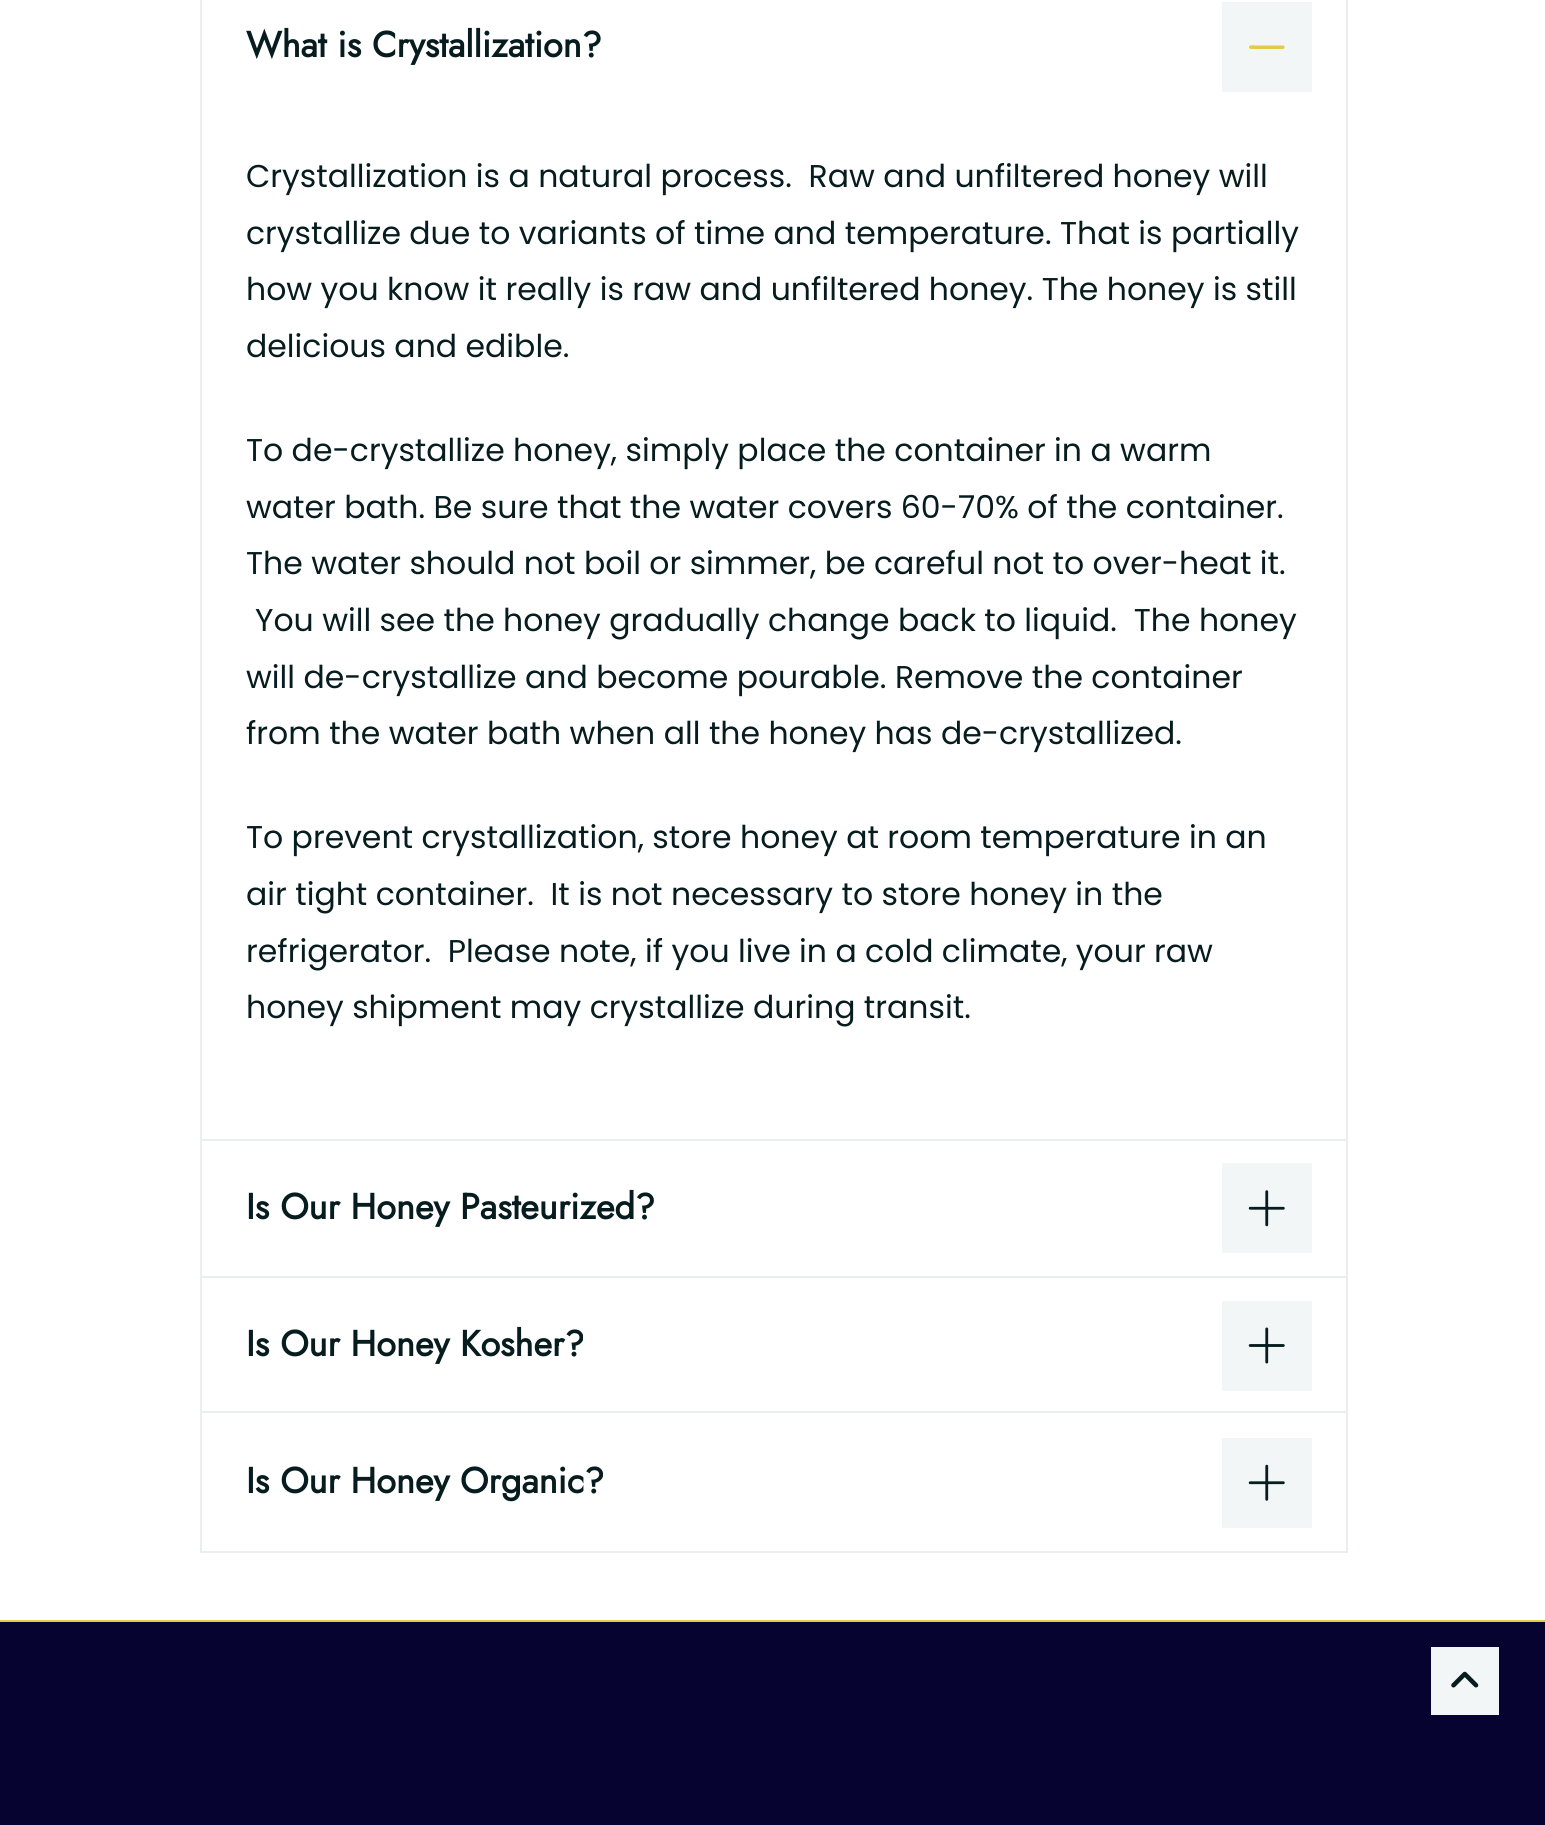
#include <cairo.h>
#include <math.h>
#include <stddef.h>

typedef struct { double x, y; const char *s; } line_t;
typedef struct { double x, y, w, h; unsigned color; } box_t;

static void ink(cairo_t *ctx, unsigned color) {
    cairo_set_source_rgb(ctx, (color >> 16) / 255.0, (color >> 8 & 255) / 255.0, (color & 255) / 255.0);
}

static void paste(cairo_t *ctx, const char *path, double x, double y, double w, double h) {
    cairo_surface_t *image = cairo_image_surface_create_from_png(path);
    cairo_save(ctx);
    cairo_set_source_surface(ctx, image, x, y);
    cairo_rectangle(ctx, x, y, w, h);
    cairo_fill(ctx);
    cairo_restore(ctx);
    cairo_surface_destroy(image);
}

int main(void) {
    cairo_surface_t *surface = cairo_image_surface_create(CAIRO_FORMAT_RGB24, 1545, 1825);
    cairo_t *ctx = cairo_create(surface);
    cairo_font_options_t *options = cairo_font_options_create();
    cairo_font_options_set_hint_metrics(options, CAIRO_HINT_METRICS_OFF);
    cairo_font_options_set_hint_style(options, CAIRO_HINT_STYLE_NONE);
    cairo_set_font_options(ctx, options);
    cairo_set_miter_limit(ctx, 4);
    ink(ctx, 0xFFFFFF);
    cairo_paint(ctx);
    cairo_rectangle(ctx, 201, -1, 1146, 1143);
    ink(ctx, 0xEBEEEE);
    cairo_stroke(ctx);
    cairo_select_font_face(ctx, "Jost", CAIRO_FONT_SLANT_NORMAL, CAIRO_FONT_WEIGHT_BOLD);
    cairo_set_font_size(ctx, 36);
    ink(ctx, 0x071C1F);
    cairo_move_to(ctx, 246, 57);
    cairo_show_text(ctx, "What is Crystallization?");
    ink(ctx, 0xF2F6F7);
    cairo_rectangle(ctx, 1222, 2, 90, 90);
    cairo_fill(ctx);
    ink(ctx, 0xE4CA48);
    cairo_new_path(ctx);
    cairo_move_to(ctx, 1283, 45.5);
    cairo_line_to(ctx, 1256, 45.5);
    cairo_curve_to(ctx, 1253.5, 45.5, 1249, 44.5, 1249, 47);
    cairo_curve_to(ctx, 1248.5, 49.5, 1253, 49, 1256, 49);
    cairo_line_to(ctx, 1283, 49);
    cairo_curve_to(ctx, 1285, 49, 1285, 45.5, 1283, 45.5);
    cairo_close_path(ctx);
    cairo_fill(ctx);
    cairo_select_font_face(ctx, "Poppins", CAIRO_FONT_SLANT_NORMAL, CAIRO_FONT_WEIGHT_NORMAL);
    cairo_set_font_size(ctx, 31.5);
    ink(ctx, 0x071C1F);
    {
        static const line_t items[] = {
            {246, 187, "Crystallization is a natural process.  Raw and unfiltered honey will"},
            {246, 244, "crystallize due to variants of time and temperature. That is partially"},
            {246, 300, "how you know it really is raw and unfiltered honey. The honey is still"},
            {246, 357, "delicious and edible."},
            {246, 461, "To de-crystallize honey, simply place the container in a warm"},
            {246, 518, "water bath. Be sure that the water covers 60-70% of the container."},
            {246, 574, "The water should not boil or simmer, be careful not to over-heat it."},
            {255, 631, "You will see the honey gradually change back to liquid.  The honey"},
            {246, 688, "will de-crystallize and become pourable. Remove the container"},
            {246, 744, "from the water bath when all the honey has de-crystallized."},
            {246, 848, "To prevent crystallization, store honey at room temperature in an"},
            {246, 905, "air tight container.  It is not necessary to store honey in the"},
            {246, 962, "refrigerator.  Please note, if you live in a cold climate, your raw"},
            {246, 1018, "honey shipment may crystallize during transit."},
        };
        for (size_t i = 0; i < sizeof items / sizeof *items; i++) {
            cairo_move_to(ctx, items[i].x, items[i].y);
            cairo_show_text(ctx, items[i].s);
        }
    }
    ink(ctx, 0xFFFFFF);
    cairo_rectangle(ctx, 202, 1141, 1144, 2);
    cairo_fill(ctx);
    cairo_rectangle(ctx, 201, 1140, 1146, 139);
    ink(ctx, 0xEBEEEE);
    cairo_stroke(ctx);
    cairo_select_font_face(ctx, "Jost", CAIRO_FONT_SLANT_NORMAL, CAIRO_FONT_WEIGHT_BOLD);
    cairo_set_font_size(ctx, 36);
    ink(ctx, 0x071C1F);
    cairo_move_to(ctx, 246, 1219);
    cairo_show_text(ctx, "Is Our Honey Pasteurized?");
    ink(ctx, 0xF2F6F7);
    cairo_rectangle(ctx, 1222, 1163, 90, 90);
    cairo_fill(ctx);
    paste(ctx, "media/1.png", 1248, 1190, 37, 37);
    ink(ctx, 0xFFFFFF);
    cairo_rectangle(ctx, 202, 1278, 1144, 2);
    cairo_fill(ctx);
    cairo_rectangle(ctx, 201, 1277, 1146, 137);
    ink(ctx, 0xEBEEEE);
    cairo_stroke(ctx);
    ink(ctx, 0x071C1F);
    cairo_move_to(ctx, 246, 1356);
    cairo_show_text(ctx, "Is Our Honey Kosher?");
    ink(ctx, 0xF2F6F7);
    cairo_rectangle(ctx, 1222, 1301, 90, 90);
    cairo_fill(ctx);
    paste(ctx, "media/2.png", 1248, 1327, 37, 37);
    ink(ctx, 0xFFFFFF);
    cairo_rectangle(ctx, 202, 1413, 1144, 2);
    cairo_fill(ctx);
    cairo_rectangle(ctx, 201, 1412, 1146, 140);
    ink(ctx, 0xEBEEEE);
    cairo_stroke(ctx);
    ink(ctx, 0x071C1F);
    cairo_move_to(ctx, 246, 1493);
    cairo_show_text(ctx, "Is Our Honey Organic?");
    ink(ctx, 0xF2F6F7);
    cairo_rectangle(ctx, 1222, 1438, 90, 90);
    cairo_fill(ctx);
    paste(ctx, "media/3.png", 1248, 1464, 37, 37);
    {
        static const box_t items[] = {
            {0, 1622, 1545, 203, 0x070331},
            {0, 1620, 1545, 2, 0xE4CA48},
            {1431, 1647, 68, 68, 0xF2F6F7},
        };
        for (size_t i = 0; i < sizeof items / sizeof *items; i++) {
            ink(ctx, items[i].color);
            cairo_rectangle(ctx, items[i].x, items[i].y, items[i].w, items[i].h);
            cairo_fill(ctx);
        }
    }
    paste(ctx, "media/4.png", 1451, 1671, 28, 17);
    cairo_surface_write_to_png(surface, "image.png");
    cairo_font_options_destroy(options);
    cairo_destroy(ctx);
    cairo_surface_destroy(surface);
    return 0;
}
